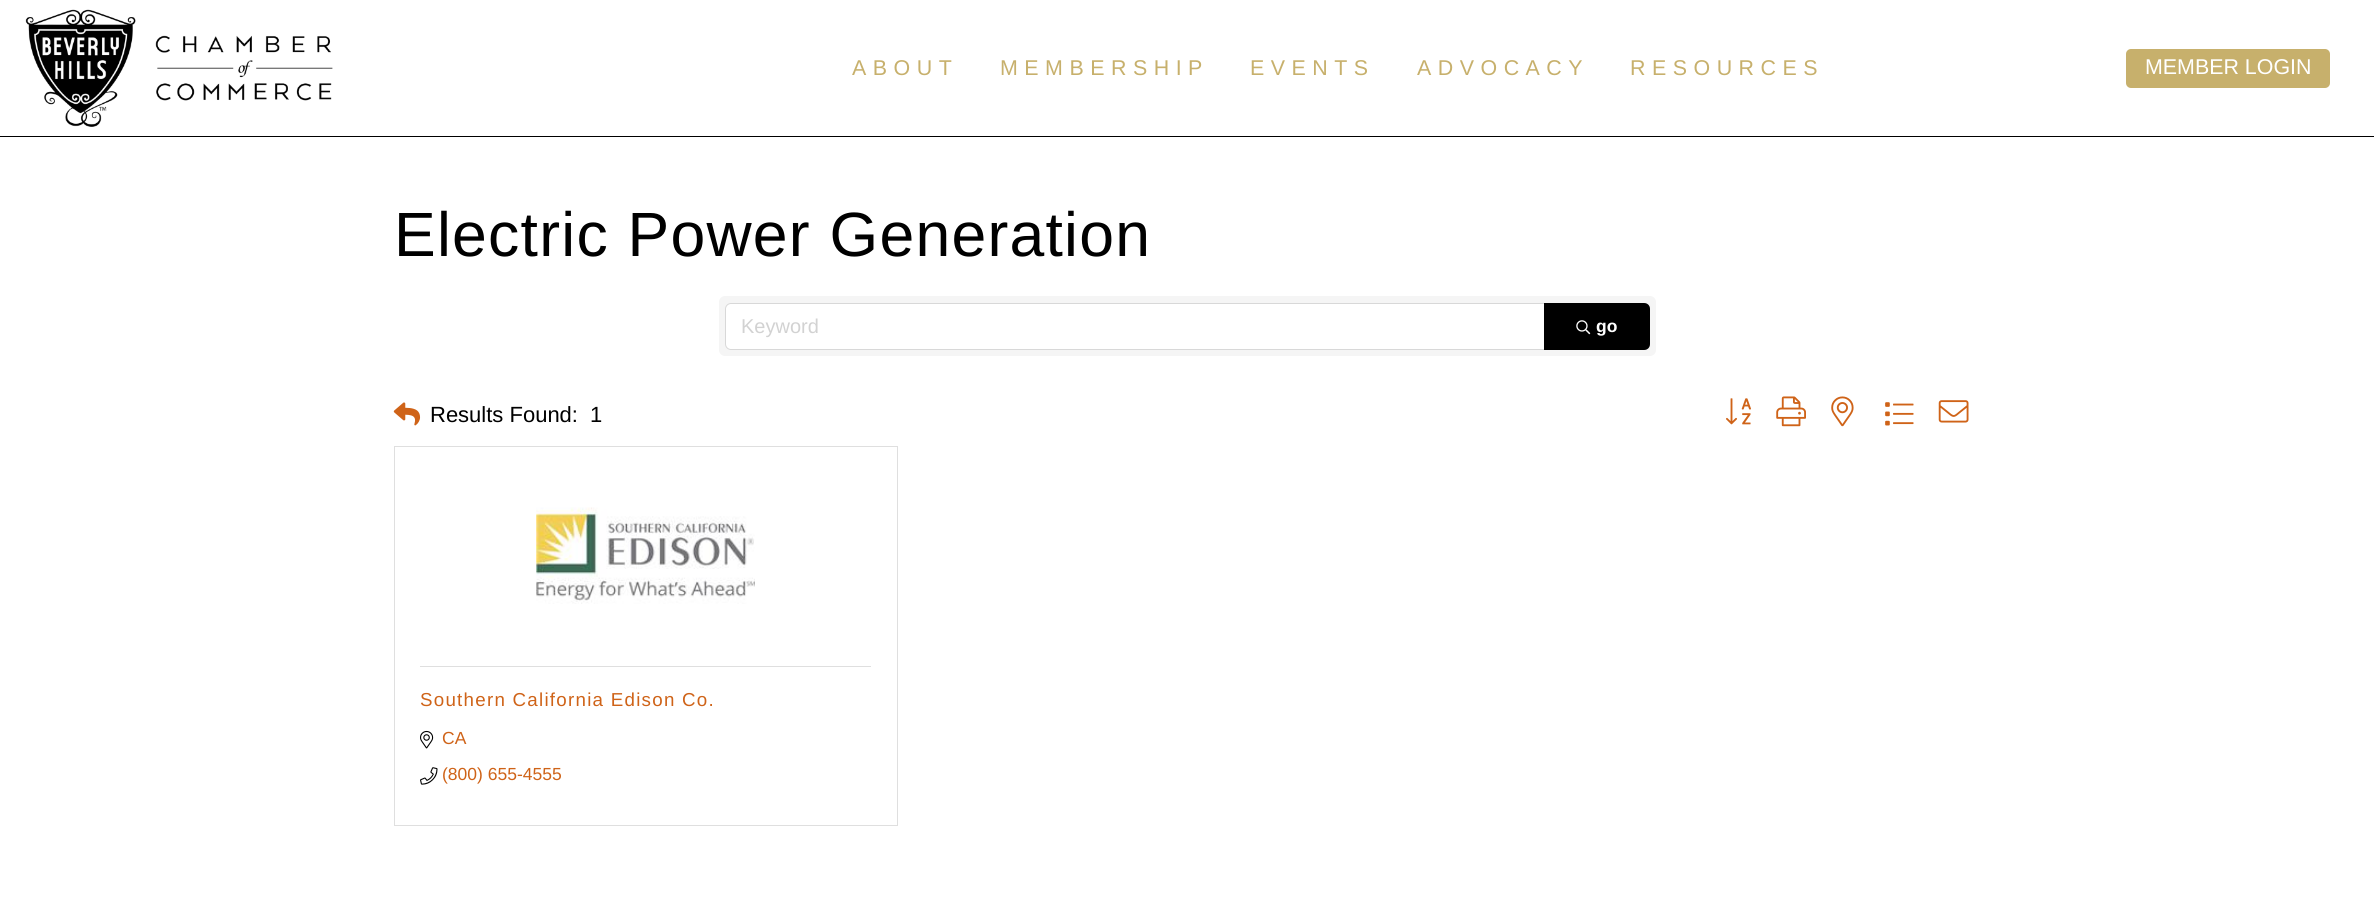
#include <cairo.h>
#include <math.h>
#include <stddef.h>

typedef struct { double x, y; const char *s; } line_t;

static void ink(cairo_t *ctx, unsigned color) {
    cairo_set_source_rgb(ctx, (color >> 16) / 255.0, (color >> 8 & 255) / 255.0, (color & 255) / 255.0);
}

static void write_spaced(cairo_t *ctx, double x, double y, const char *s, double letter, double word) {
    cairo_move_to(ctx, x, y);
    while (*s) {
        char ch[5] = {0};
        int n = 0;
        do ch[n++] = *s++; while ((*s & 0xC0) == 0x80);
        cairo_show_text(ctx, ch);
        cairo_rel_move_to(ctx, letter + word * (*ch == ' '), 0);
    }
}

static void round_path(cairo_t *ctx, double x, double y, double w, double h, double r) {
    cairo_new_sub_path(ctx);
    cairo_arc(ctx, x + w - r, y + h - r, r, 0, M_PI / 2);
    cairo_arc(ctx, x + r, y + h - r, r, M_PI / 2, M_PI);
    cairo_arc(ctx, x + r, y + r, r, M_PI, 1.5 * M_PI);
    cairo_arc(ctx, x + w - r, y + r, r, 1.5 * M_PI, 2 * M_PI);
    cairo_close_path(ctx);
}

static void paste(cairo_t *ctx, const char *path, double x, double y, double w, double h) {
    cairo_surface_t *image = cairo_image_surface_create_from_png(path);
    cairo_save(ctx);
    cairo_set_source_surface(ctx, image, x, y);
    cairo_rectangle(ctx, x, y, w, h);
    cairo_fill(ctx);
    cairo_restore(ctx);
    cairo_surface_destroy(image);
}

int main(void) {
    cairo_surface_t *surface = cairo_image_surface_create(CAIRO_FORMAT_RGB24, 2374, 899);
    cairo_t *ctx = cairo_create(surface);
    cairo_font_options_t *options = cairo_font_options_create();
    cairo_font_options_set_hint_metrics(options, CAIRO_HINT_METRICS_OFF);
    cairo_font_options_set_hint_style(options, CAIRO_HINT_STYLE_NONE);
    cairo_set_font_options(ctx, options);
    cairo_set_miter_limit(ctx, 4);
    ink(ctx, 0xFFFFFF);
    cairo_paint(ctx);
    ink(ctx, 0x000000);
    cairo_rectangle(ctx, 0, 136, 2374, 1);
    cairo_fill(ctx);
    paste(ctx, "media/1.png", 25, 9, 308, 118);
    cairo_select_font_face(ctx, "Liberation Sans", CAIRO_FONT_SLANT_NORMAL, CAIRO_FONT_WEIGHT_NORMAL);
    cairo_set_font_size(ctx, 21.4);
    ink(ctx, 0xC7B06C);
    {
        static const line_t items[] = {
            {852, 75, "ABOUT"},
            {1000, 75, "MEMBERSHIP"},
            {1250, 75, "EVENTS"},
            {1417, 75, "ADVOCACY"},
            {1630, 75, "RESOURCES"},
        };
        for (size_t i = 0; i < sizeof items / sizeof *items; i++) {
            write_spaced(ctx, items[i].x, items[i].y, items[i].s, 6.5, 0);
        }
    }
    round_path(ctx, 2126, 49, 204, 39, 5);
    cairo_fill(ctx);
    ink(ctx, 0xFFFFFF);
    cairo_move_to(ctx, 2145, 74);
    cairo_show_text(ctx, "MEMBER LOGIN");
    cairo_set_font_size(ctx, 62.5);
    ink(ctx, 0x000000);
    write_spaced(ctx, 394, 256, "Electric Power Generation", 1.25, 0);
    ink(ctx, 0xF5F5F5);
    round_path(ctx, 719, 296, 937, 60, 6);
    cairo_fill(ctx);
    ink(ctx, 0xFFFFFF);
    cairo_new_path(ctx);
    cairo_move_to(ctx, 731, 304);
    cairo_line_to(ctx, 1544, 304);
    cairo_line_to(ctx, 1544, 349);
    cairo_line_to(ctx, 731, 349);
    cairo_curve_to(ctx, 728, 349, 726, 347, 726, 344);
    cairo_line_to(ctx, 726, 309);
    cairo_curve_to(ctx, 726, 306, 728, 304, 731, 304);
    cairo_close_path(ctx);
    cairo_fill(ctx);
    cairo_new_path(ctx);
    cairo_move_to(ctx, 731, 303.5);
    cairo_line_to(ctx, 1544.5, 303.5);
    cairo_line_to(ctx, 1544.5, 349.5);
    cairo_line_to(ctx, 731, 349.5);
    cairo_curve_to(ctx, 728, 349.5, 725.5, 347, 725.5, 344);
    cairo_line_to(ctx, 725.5, 309);
    cairo_curve_to(ctx, 725.5, 306, 728, 303.5, 731, 303.5);
    cairo_close_path(ctx);
    cairo_set_source_rgba(ctx, 0, 0, 0, 0.12);
    cairo_set_line_width(ctx, 1);
    cairo_stroke(ctx);
    cairo_set_font_size(ctx, 20);
    ink(ctx, 0xD2D2D2);
    cairo_move_to(ctx, 741, 333);
    cairo_show_text(ctx, "Keyword");
    ink(ctx, 0x000000);
    cairo_new_path(ctx);
    cairo_move_to(ctx, 1544, 303);
    cairo_line_to(ctx, 1644, 303);
    cairo_curve_to(ctx, 1647.5, 303, 1650, 305.5, 1650, 309);
    cairo_line_to(ctx, 1650, 344);
    cairo_curve_to(ctx, 1650, 347.5, 1647.5, 350, 1644, 350);
    cairo_line_to(ctx, 1544, 350);
    cairo_close_path(ctx);
    cairo_fill(ctx);
    cairo_new_path(ctx);
    cairo_move_to(ctx, 1544.5, 303.5);
    cairo_line_to(ctx, 1644, 303.5);
    cairo_curve_to(ctx, 1647, 303.5, 1649.5, 306, 1649.5, 309);
    cairo_line_to(ctx, 1649.5, 344);
    cairo_curve_to(ctx, 1649.5, 347, 1647, 349.5, 1644, 349.5);
    cairo_line_to(ctx, 1544.5, 349.5);
    cairo_close_path(ctx);
    cairo_set_source_rgba(ctx, 0, 0, 0, 0.12);
    cairo_stroke(ctx);
    paste(ctx, "media/2.png", 1576, 320, 15, 15);
    cairo_select_font_face(ctx, "Liberation Sans", CAIRO_FONT_SLANT_NORMAL, CAIRO_FONT_WEIGHT_BOLD);
    cairo_set_font_size(ctx, 17.5);
    ink(ctx, 0xFFFFFF);
    cairo_move_to(ctx, 1596, 332);
    cairo_show_text(ctx, "go");
    paste(ctx, "media/3.png", 393, 402, 28, 24);
    cairo_select_font_face(ctx, "Liberation Sans", CAIRO_FONT_SLANT_NORMAL, CAIRO_FONT_WEIGHT_NORMAL);
    cairo_set_font_size(ctx, 22);
    ink(ctx, 0x000000);
    cairo_move_to(ctx, 430, 422);
    cairo_show_text(ctx, "Results Found:");
    cairo_move_to(ctx, 590, 422);
    cairo_show_text(ctx, "1");
    paste(ctx, "media/4.png", 1726, 398, 25, 27);
    paste(ctx, "media/5.png", 1776, 396, 30, 31);
    paste(ctx, "media/6.png", 1831, 396, 23, 31);
    paste(ctx, "media/7.png", 1885, 402, 29, 24);
    paste(ctx, "media/8.png", 1938, 400, 31, 23);
    cairo_rectangle(ctx, 394.5, 446.5, 503, 379);
    ink(ctx, 0xDFDFDF);
    cairo_stroke(ctx);
    paste(ctx, "media/9.png", 536, 507, 219, 97);
    cairo_rectangle(ctx, 420, 666, 451, 1);
    cairo_fill(ctx);
    cairo_set_font_size(ctx, 18.75);
    ink(ctx, 0xCF6318);
    write_spaced(ctx, 420, 706, "Southern California Edison Co.", 1.25, 0);
    paste(ctx, "media/10.png", 420, 730, 14, 19);
    cairo_set_font_size(ctx, 17.5);
    cairo_move_to(ctx, 442, 744);
    cairo_show_text(ctx, "CA");
    paste(ctx, "media/11.png", 420, 767, 18, 18);
    cairo_move_to(ctx, 442, 780);
    cairo_show_text(ctx, "(800) 655-4555");
    cairo_surface_write_to_png(surface, "image.png");
    cairo_font_options_destroy(options);
    cairo_destroy(ctx);
    cairo_surface_destroy(surface);
    return 0;
}
